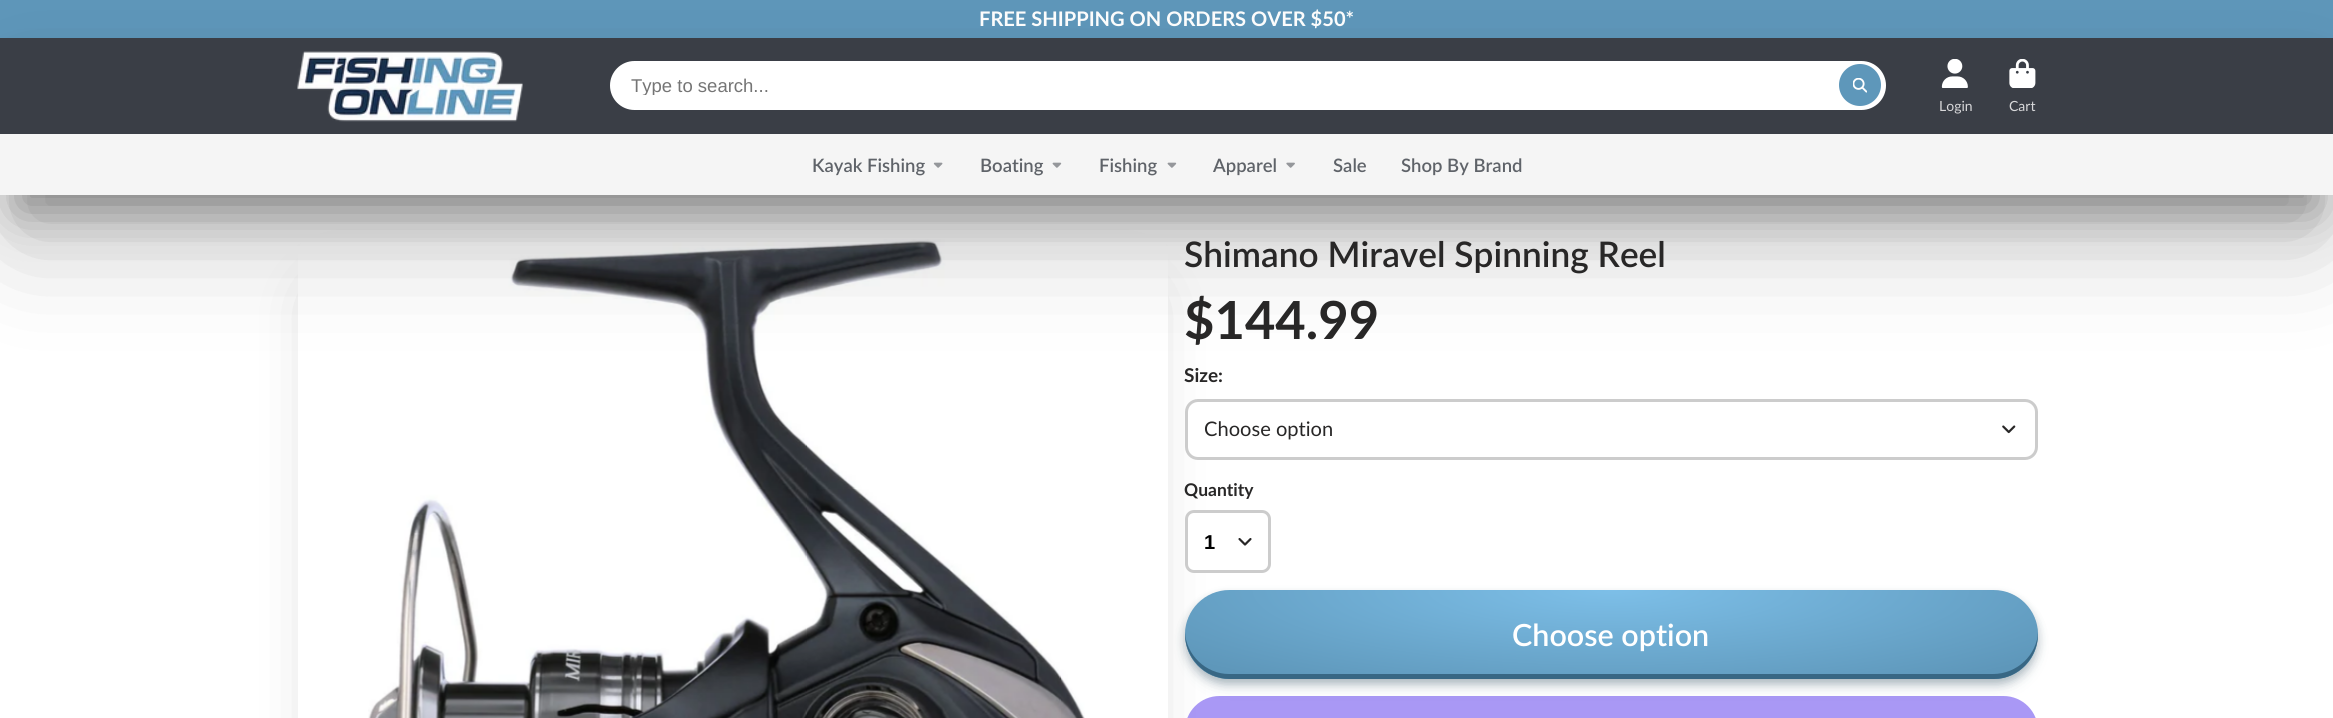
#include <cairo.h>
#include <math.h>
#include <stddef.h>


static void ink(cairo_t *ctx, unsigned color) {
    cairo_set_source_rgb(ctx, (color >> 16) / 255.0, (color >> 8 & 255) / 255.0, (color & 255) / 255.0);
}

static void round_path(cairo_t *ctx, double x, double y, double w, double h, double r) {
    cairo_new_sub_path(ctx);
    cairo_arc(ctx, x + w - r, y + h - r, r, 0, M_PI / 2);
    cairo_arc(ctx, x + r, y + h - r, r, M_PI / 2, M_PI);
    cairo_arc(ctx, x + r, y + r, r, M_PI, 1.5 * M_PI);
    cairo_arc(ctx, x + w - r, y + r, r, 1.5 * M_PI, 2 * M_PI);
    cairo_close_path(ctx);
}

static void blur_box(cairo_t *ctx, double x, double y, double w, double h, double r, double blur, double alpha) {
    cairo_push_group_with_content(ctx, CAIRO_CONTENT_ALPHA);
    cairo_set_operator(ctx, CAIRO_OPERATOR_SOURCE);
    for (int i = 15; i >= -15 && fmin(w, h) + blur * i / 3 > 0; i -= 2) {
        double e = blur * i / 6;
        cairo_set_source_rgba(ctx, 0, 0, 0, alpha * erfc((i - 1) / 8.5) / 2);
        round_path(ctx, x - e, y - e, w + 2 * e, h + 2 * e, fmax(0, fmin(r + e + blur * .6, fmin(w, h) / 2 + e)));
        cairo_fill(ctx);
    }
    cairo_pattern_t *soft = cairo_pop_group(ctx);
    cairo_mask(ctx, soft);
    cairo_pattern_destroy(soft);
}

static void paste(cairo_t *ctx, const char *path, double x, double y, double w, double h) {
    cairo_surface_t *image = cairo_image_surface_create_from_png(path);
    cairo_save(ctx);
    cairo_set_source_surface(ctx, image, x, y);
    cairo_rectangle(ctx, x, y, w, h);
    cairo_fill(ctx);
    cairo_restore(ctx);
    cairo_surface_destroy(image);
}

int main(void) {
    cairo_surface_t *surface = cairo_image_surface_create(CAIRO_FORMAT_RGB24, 2333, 718);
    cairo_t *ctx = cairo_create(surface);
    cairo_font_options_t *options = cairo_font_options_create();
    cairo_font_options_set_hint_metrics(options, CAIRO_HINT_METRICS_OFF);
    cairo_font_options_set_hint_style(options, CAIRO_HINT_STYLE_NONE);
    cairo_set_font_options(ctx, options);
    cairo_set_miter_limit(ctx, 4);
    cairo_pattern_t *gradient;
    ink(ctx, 0xFFFFFF);
    cairo_paint(ctx);
    ink(ctx, 0x5E97BA);
    cairo_rectangle(ctx, 0, 0, 2333, 38);
    cairo_fill(ctx);
    cairo_select_font_face(ctx, "Lato", CAIRO_FONT_SLANT_NORMAL, CAIRO_FONT_WEIGHT_BOLD);
    cairo_set_font_size(ctx, 20.1);
    ink(ctx, 0xFFFFFF);
    cairo_move_to(ctx, 979, 26);
    cairo_show_text(ctx, "FREE SHIPPING ON ORDERS OVER $50*");
    cairo_save(ctx);
    cairo_set_fill_rule(ctx, CAIRO_FILL_RULE_EVEN_ODD);
    cairo_new_path(ctx);
    cairo_move_to(ctx, 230, 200);
    cairo_line_to(ctx, 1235, 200);
    cairo_line_to(ctx, 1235, 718);
    cairo_line_to(ctx, 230, 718);
    cairo_close_path(ctx);
    cairo_move_to(ctx, 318, 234);
    cairo_line_to(ctx, 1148, 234);
    cairo_curve_to(ctx, 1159, 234, 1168, 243, 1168, 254);
    cairo_line_to(ctx, 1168, 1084);
    cairo_curve_to(ctx, 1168, 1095, 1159, 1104, 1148, 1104);
    cairo_line_to(ctx, 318, 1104);
    cairo_curve_to(ctx, 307, 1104, 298, 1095, 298, 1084);
    cairo_line_to(ctx, 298, 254);
    cairo_curve_to(ctx, 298, 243, 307, 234, 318, 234);
    cairo_close_path(ctx);
    cairo_clip(ctx);
    ink(ctx, 0x1B1A1A);
    blur_box(ctx, 330, 300, 805, 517, 0, 33, 0.3);
    cairo_restore(ctx);
    paste(ctx, "media/8.png", 368, 239, 717, 479);
    ink(ctx, 0x1B1A1A);
    blur_box(ctx, 18, 88, 2298, 122, 0, 24, 0.4);
    blur_box(ctx, 18, 110, 2298, 123, 0, 54.5, 0.3);
    ink(ctx, 0x3A3E46);
    cairo_rectangle(ctx, 0, 38, 2333, 96);
    cairo_fill(ctx);
    paste(ctx, "media/1.png", 297, 51, 226, 71);
    ink(ctx, 0xFFFFFF);
    round_path(ctx, 610, 61, 1276, 49, 24.5);
    cairo_fill(ctx);
    cairo_save(ctx);
    cairo_rectangle(ctx, 631, 75, 1233, 20);
    cairo_clip(ctx);
    cairo_select_font_face(ctx, "Liberation Sans", CAIRO_FONT_SLANT_NORMAL, CAIRO_FONT_WEIGHT_NORMAL);
    cairo_set_font_size(ctx, 18.5);
    ink(ctx, 0x757575);
    cairo_move_to(ctx, 631, 92);
    cairo_show_text(ctx, "Type to search...");
    cairo_restore(ctx);
    ink(ctx, 0x5E97BA);
    cairo_new_path(ctx);
    cairo_arc(ctx, 1860, 85, 21, 0, 2 * M_PI);
    cairo_fill(ctx);
    paste(ctx, "media/2.png", 1853, 78, 14, 15);
    paste(ctx, "media/3.png", 1941, 59, 27, 29);
    cairo_select_font_face(ctx, "Lato", CAIRO_FONT_SLANT_NORMAL, CAIRO_FONT_WEIGHT_NORMAL);
    cairo_set_font_size(ctx, 14);
    ink(ctx, 0xD8D8DA);
    cairo_move_to(ctx, 1939, 111);
    cairo_show_text(ctx, "Login");
    paste(ctx, "media/4.png", 2009, 59, 27, 29);
    cairo_move_to(ctx, 2009, 111);
    cairo_show_text(ctx, "Cart");
    ink(ctx, 0xF5F5F5);
    cairo_rectangle(ctx, 0, 134, 2333, 61);
    cairo_fill(ctx);
    cairo_select_font_face(ctx, "Lato SemiBold", CAIRO_FONT_SLANT_NORMAL, CAIRO_FONT_WEIGHT_NORMAL);
    cairo_set_font_size(ctx, 18.5);
    ink(ctx, 0x5F6369);
    cairo_move_to(ctx, 812, 172);
    cairo_show_text(ctx, "Kayak Fishing");
    paste(ctx, "media/5.png", 933, 162, 10, 6);
    cairo_move_to(ctx, 980, 172);
    cairo_show_text(ctx, "Boating");
    paste(ctx, "media/6.png", 1052, 162, 10, 6);
    cairo_move_to(ctx, 1099, 172);
    cairo_show_text(ctx, "Fishing");
    paste(ctx, "media/6.png", 1167, 162, 10, 6);
    cairo_move_to(ctx, 1213, 172);
    cairo_show_text(ctx, "Apparel");
    paste(ctx, "media/7.png", 1286, 162, 9, 6);
    cairo_move_to(ctx, 1333, 172);
    cairo_show_text(ctx, "Sale");
    cairo_move_to(ctx, 1401, 172);
    cairo_show_text(ctx, "Shop By Brand");
    cairo_set_font_size(ctx, 35.25);
    ink(ctx, 0x282727);
    cairo_move_to(ctx, 1184, 267);
    cairo_show_text(ctx, "Shimano Miravel Spinning Reel");
    cairo_select_font_face(ctx, "Lato", CAIRO_FONT_SLANT_NORMAL, CAIRO_FONT_WEIGHT_BOLD);
    cairo_set_font_size(ctx, 52.5);
    cairo_move_to(ctx, 1184, 339);
    cairo_show_text(ctx, "$144.99");
    cairo_set_font_size(ctx, 19);
    cairo_move_to(ctx, 1184, 382);
    cairo_show_text(ctx, "Size:");
    ink(ctx, 0xFFFFFF);
    round_path(ctx, 1186.5, 400.5, 850, 58, 11.5);
    cairo_fill_preserve(ctx);
    ink(ctx, 0xCCCCCC);
    cairo_set_line_width(ctx, 3);
    cairo_stroke(ctx);
    cairo_select_font_face(ctx, "Lato", CAIRO_FONT_SLANT_NORMAL, CAIRO_FONT_WEIGHT_NORMAL);
    cairo_set_font_size(ctx, 20.1);
    ink(ctx, 0x282727);
    cairo_move_to(ctx, 1204, 436);
    cairo_show_text(ctx, "Choose option");
    paste(ctx, "media/9.png", 2002, 425, 14, 9);
    cairo_select_font_face(ctx, "Lato", CAIRO_FONT_SLANT_NORMAL, CAIRO_FONT_WEIGHT_BOLD);
    cairo_set_font_size(ctx, 17.5);
    cairo_move_to(ctx, 1184, 496);
    cairo_show_text(ctx, "Quantity");
    ink(ctx, 0xFFFFFF);
    round_path(ctx, 1186.5, 511.5, 83, 60, 7.5);
    cairo_fill_preserve(ctx);
    ink(ctx, 0xCCCCCC);
    cairo_stroke(ctx);
    cairo_select_font_face(ctx, "Liberation Sans", CAIRO_FONT_SLANT_NORMAL, CAIRO_FONT_WEIGHT_BOLD);
    cairo_set_font_size(ctx, 20.1);
    ink(ctx, 0x000000);
    cairo_move_to(ctx, 1204, 549);
    cairo_show_text(ctx, "1");
    paste(ctx, "media/10.png", 1238, 538, 14, 8);
    cairo_set_source_rgba(ctx, 0.329, 0.2, 0.922, 0.5);
    round_path(ctx, 1185, 696, 853, 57, 34.5);
    cairo_fill(ctx);
    ink(ctx, 0x264659);
    blur_box(ctx, 1190, 604, 843, 80, 40, 9, 0.15);
    blur_box(ctx, 1185, 595, 853, 89, 44.5, 4.5, 0.3);
    cairo_save(ctx);
    round_path(ctx, 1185, 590, 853, 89, 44.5);
    cairo_clip(ctx);
    blur_box(ctx, 1190, 604, 843, 80, 40, 9, 0.15);
    blur_box(ctx, 1185, 595, 853, 89, 44.5, 4.5, 0.3);
    cairo_restore(ctx);
    gradient = cairo_pattern_create_radial(0, 0, 0, 0, 0, 1);
    cairo_pattern_set_matrix(gradient, &(cairo_matrix_t){1.0 / 603, 0, 0, 1.0 / 126, -1.0 * 1611 / 603, -1.0 * 590 / 126});
    cairo_pattern_add_color_stop_rgba(gradient, 0, 0.49, 0.749, 0.91, 1);
    cairo_pattern_add_color_stop_rgba(gradient, 0.9, 0.369, 0.592, 0.729, 1);
    cairo_set_source(ctx, gradient);
    cairo_pattern_destroy(gradient);
    round_path(ctx, 1185, 590, 853, 89, 44.5);
    cairo_fill(ctx);
    ink(ctx, 0x386784);
    cairo_new_path(ctx);
    cairo_move_to(ctx, 1185, 632);
    cairo_curve_to(ctx, 1184, 657, 1204, 679, 1230, 679);
    cairo_line_to(ctx, 1994, 679);
    cairo_curve_to(ctx, 2019, 679, 2039, 657, 2038, 632);
    cairo_curve_to(ctx, 2037, 655, 2017, 674, 1993, 674);
    cairo_line_to(ctx, 1229, 674);
    cairo_curve_to(ctx, 1206, 674, 1186, 655, 1185, 632);
    cairo_close_path(ctx);
    cairo_fill(ctx);
    cairo_select_font_face(ctx, "Lato SemiBold", CAIRO_FONT_SLANT_NORMAL, CAIRO_FONT_WEIGHT_NORMAL);
    cairo_set_font_size(ctx, 30.5);
    ink(ctx, 0xFFFFFF);
    cairo_move_to(ctx, 1512, 646);
    cairo_show_text(ctx, "Choose option");
    cairo_surface_write_to_png(surface, "image.png");
    cairo_font_options_destroy(options);
    cairo_destroy(ctx);
    cairo_surface_destroy(surface);
    return 0;
}
